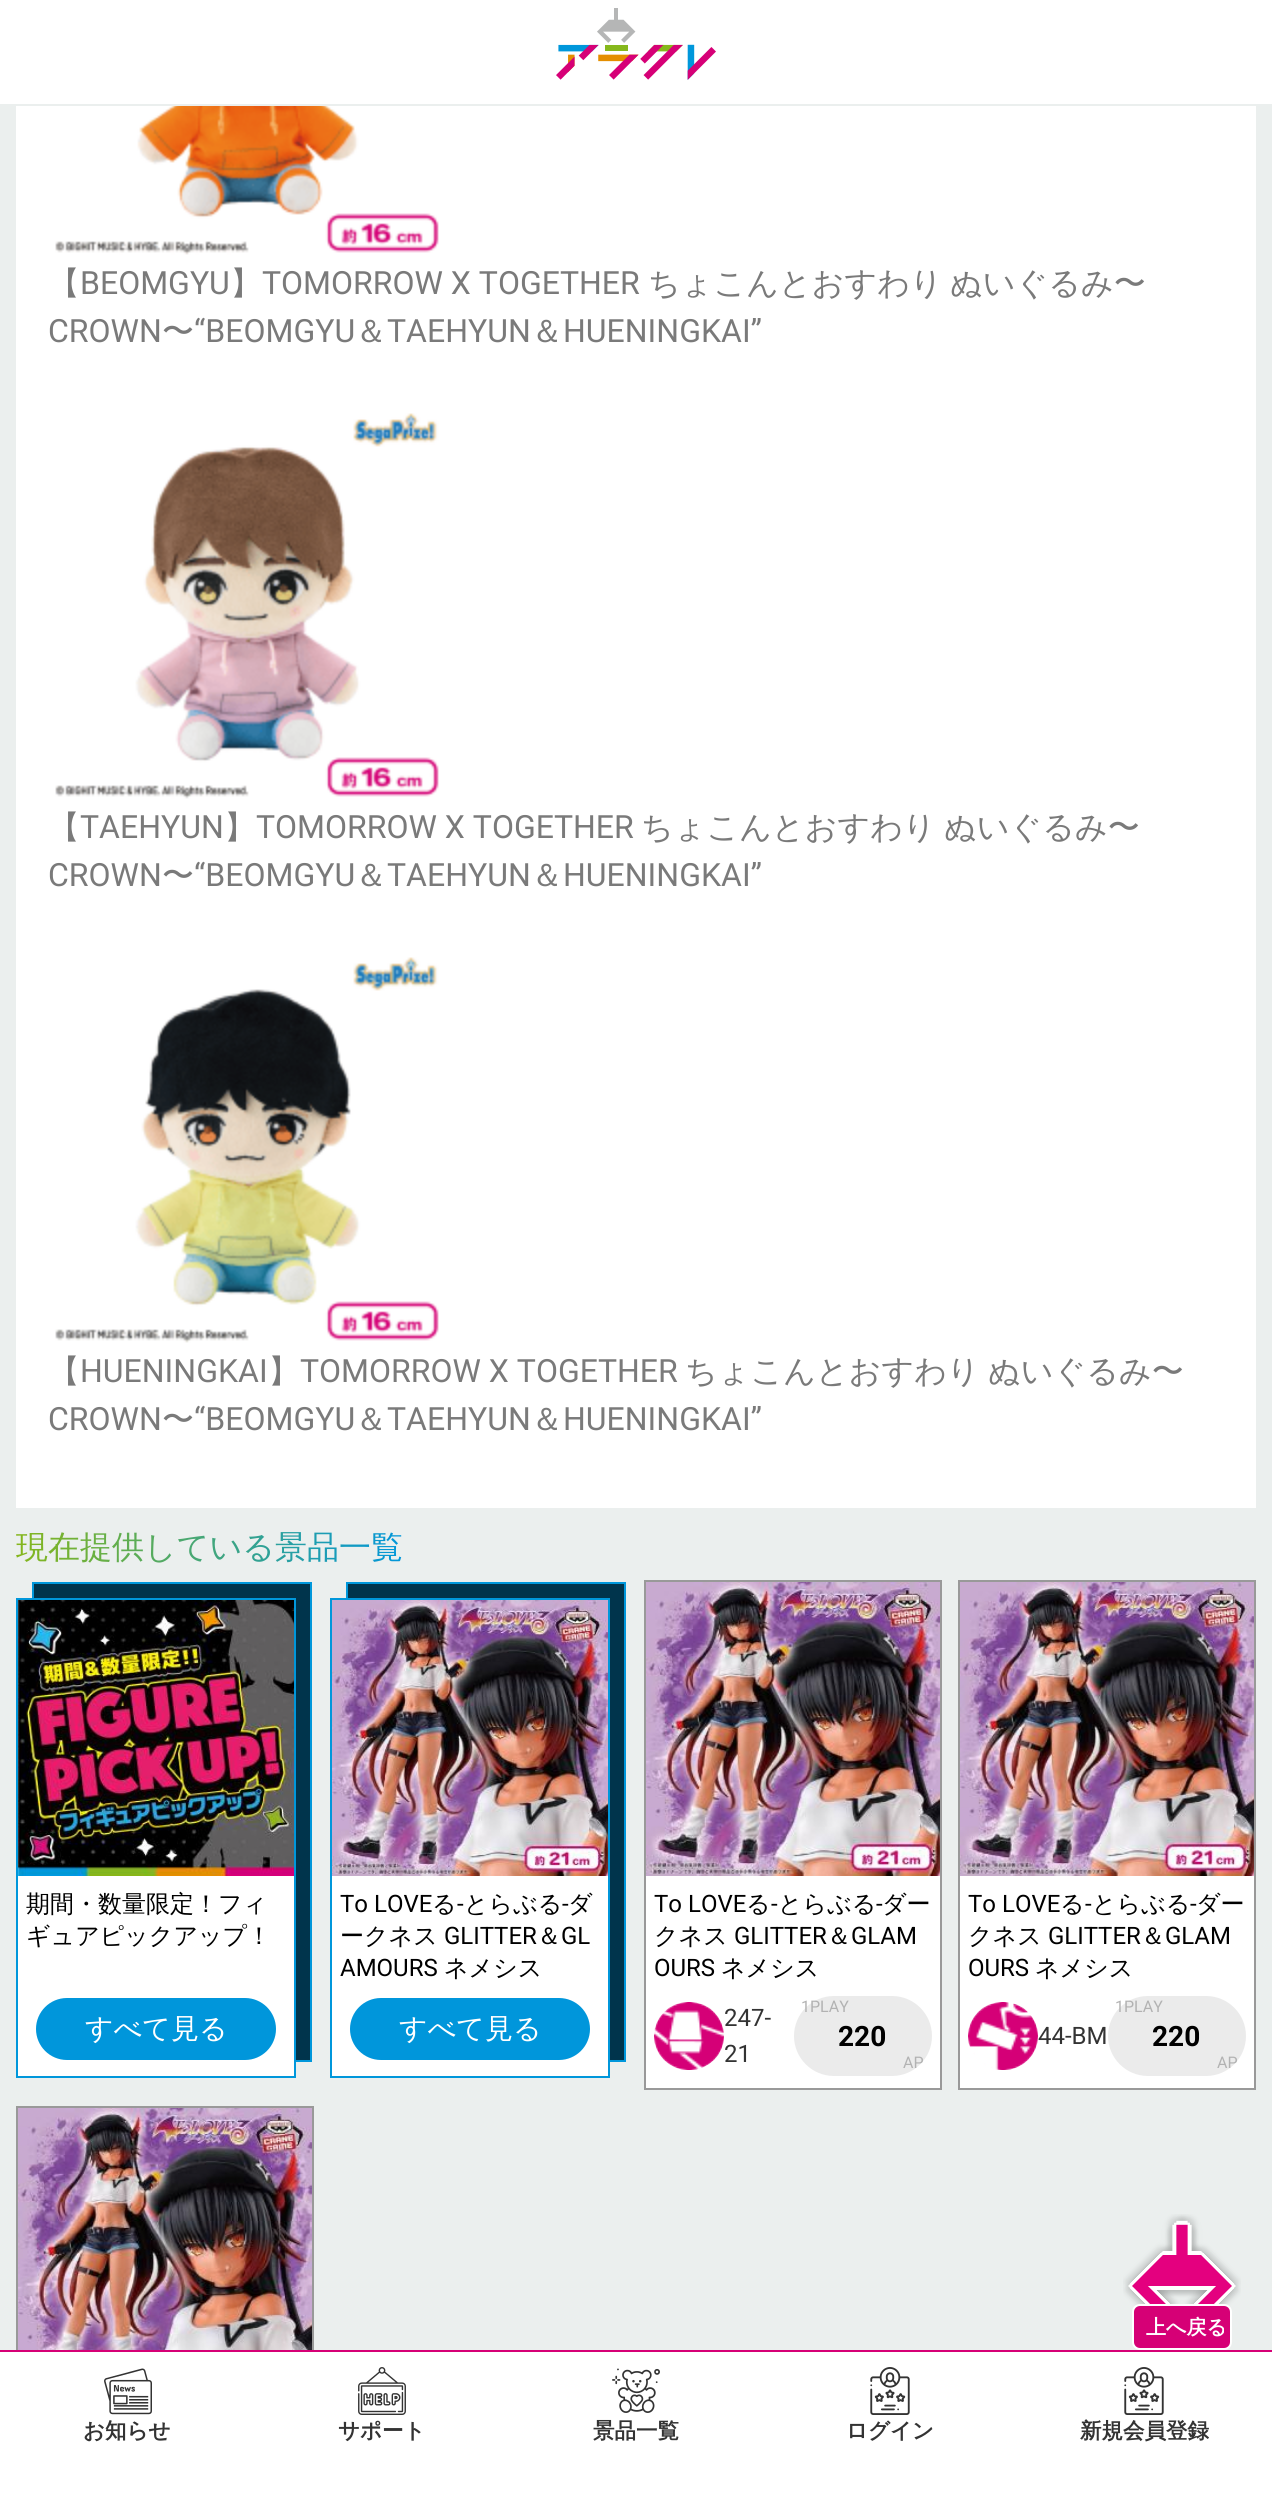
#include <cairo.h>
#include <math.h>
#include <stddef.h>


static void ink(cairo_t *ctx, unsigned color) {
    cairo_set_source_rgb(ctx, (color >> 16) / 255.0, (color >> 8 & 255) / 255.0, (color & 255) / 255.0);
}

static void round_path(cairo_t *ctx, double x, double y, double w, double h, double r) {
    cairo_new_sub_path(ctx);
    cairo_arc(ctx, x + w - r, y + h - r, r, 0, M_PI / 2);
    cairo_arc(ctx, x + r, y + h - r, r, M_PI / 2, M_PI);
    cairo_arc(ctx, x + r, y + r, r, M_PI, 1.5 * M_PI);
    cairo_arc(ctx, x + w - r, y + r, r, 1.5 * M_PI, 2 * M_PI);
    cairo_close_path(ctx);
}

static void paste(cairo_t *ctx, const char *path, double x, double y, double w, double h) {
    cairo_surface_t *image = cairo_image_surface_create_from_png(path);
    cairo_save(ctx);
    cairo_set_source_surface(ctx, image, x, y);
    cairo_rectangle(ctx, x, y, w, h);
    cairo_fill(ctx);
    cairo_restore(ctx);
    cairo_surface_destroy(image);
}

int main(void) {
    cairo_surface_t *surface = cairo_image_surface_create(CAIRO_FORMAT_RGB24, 1272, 2510);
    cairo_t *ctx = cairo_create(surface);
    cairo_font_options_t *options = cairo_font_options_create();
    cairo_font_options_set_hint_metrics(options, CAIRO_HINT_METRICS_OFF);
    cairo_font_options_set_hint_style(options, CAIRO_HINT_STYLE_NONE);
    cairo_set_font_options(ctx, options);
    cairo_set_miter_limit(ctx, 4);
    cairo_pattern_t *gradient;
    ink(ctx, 0xEBEFEE);
    cairo_paint(ctx);
    ink(ctx, 0xFFFFFF);
    cairo_rectangle(ctx, 0, 0, 1272, 104);
    cairo_fill(ctx);
    paste(ctx, "media/1.png", 556, 8, 160, 72);
    cairo_rectangle(ctx, 16, 106, 1240, 1402);
    cairo_fill(ctx);
    paste(ctx, "media/2.png", 55, 106, 384, 149);
    cairo_select_font_face(ctx, "WenQuanYi Zen Hei Medium", CAIRO_FONT_SLANT_NORMAL, CAIRO_FONT_WEIGHT_NORMAL);
    cairo_set_font_size(ctx, 32);
    ink(ctx, 0x7A7A7A);
    cairo_move_to(ctx, 48, 294);
    cairo_show_text(ctx, "【");
    cairo_select_font_face(ctx, "Roboto", CAIRO_FONT_SLANT_NORMAL, CAIRO_FONT_WEIGHT_NORMAL);
    cairo_move_to(ctx, 80, 294);
    cairo_show_text(ctx, "BEOMGYU");
    cairo_select_font_face(ctx, "WenQuanYi Zen Hei Medium", CAIRO_FONT_SLANT_NORMAL, CAIRO_FONT_WEIGHT_NORMAL);
    cairo_move_to(ctx, 230, 294);
    cairo_show_text(ctx, "】");
    cairo_select_font_face(ctx, "Roboto", CAIRO_FONT_SLANT_NORMAL, CAIRO_FONT_WEIGHT_NORMAL);
    cairo_move_to(ctx, 262, 294);
    cairo_show_text(ctx, "TOMORROW X TOGETHER");
    cairo_select_font_face(ctx, "WenQuanYi Zen Hei Medium", CAIRO_FONT_SLANT_NORMAL, CAIRO_FONT_WEIGHT_NORMAL);
    cairo_move_to(ctx, 648, 294);
    cairo_show_text(ctx, "ちょこんとおすわり");
    cairo_move_to(ctx, 950, 294);
    cairo_show_text(ctx, "ぬいぐるみ〜");
    cairo_select_font_face(ctx, "Roboto", CAIRO_FONT_SLANT_NORMAL, CAIRO_FONT_WEIGHT_NORMAL);
    cairo_move_to(ctx, 48, 342);
    cairo_show_text(ctx, "CROWN");
    cairo_select_font_face(ctx, "WenQuanYi Zen Hei Medium", CAIRO_FONT_SLANT_NORMAL, CAIRO_FONT_WEIGHT_NORMAL);
    cairo_move_to(ctx, 162, 342);
    cairo_show_text(ctx, "〜");
    cairo_select_font_face(ctx, "Roboto", CAIRO_FONT_SLANT_NORMAL, CAIRO_FONT_WEIGHT_NORMAL);
    cairo_move_to(ctx, 194, 342);
    cairo_show_text(ctx, "“BEOMGYU");
    cairo_select_font_face(ctx, "WenQuanYi Zen Hei Medium", CAIRO_FONT_SLANT_NORMAL, CAIRO_FONT_WEIGHT_NORMAL);
    cairo_move_to(ctx, 355, 342);
    cairo_show_text(ctx, "＆");
    cairo_select_font_face(ctx, "Roboto", CAIRO_FONT_SLANT_NORMAL, CAIRO_FONT_WEIGHT_NORMAL);
    cairo_move_to(ctx, 387, 342);
    cairo_show_text(ctx, "TAEHYUN");
    cairo_select_font_face(ctx, "WenQuanYi Zen Hei Medium", CAIRO_FONT_SLANT_NORMAL, CAIRO_FONT_WEIGHT_NORMAL);
    cairo_move_to(ctx, 531, 342);
    cairo_show_text(ctx, "＆");
    cairo_select_font_face(ctx, "Roboto", CAIRO_FONT_SLANT_NORMAL, CAIRO_FONT_WEIGHT_NORMAL);
    cairo_move_to(ctx, 563, 342);
    cairo_show_text(ctx, "HUENINGKAI”");
    paste(ctx, "media/3.png", 55, 413, 384, 386);
    cairo_select_font_face(ctx, "WenQuanYi Zen Hei Medium", CAIRO_FONT_SLANT_NORMAL, CAIRO_FONT_WEIGHT_NORMAL);
    cairo_move_to(ctx, 48, 838);
    cairo_show_text(ctx, "【");
    cairo_select_font_face(ctx, "Roboto", CAIRO_FONT_SLANT_NORMAL, CAIRO_FONT_WEIGHT_NORMAL);
    cairo_move_to(ctx, 80, 838);
    cairo_show_text(ctx, "TAEHYUN");
    cairo_select_font_face(ctx, "WenQuanYi Zen Hei Medium", CAIRO_FONT_SLANT_NORMAL, CAIRO_FONT_WEIGHT_NORMAL);
    cairo_move_to(ctx, 224, 838);
    cairo_show_text(ctx, "】");
    cairo_select_font_face(ctx, "Roboto", CAIRO_FONT_SLANT_NORMAL, CAIRO_FONT_WEIGHT_NORMAL);
    cairo_move_to(ctx, 256, 838);
    cairo_show_text(ctx, "TOMORROW X TOGETHER");
    cairo_select_font_face(ctx, "WenQuanYi Zen Hei Medium", CAIRO_FONT_SLANT_NORMAL, CAIRO_FONT_WEIGHT_NORMAL);
    cairo_move_to(ctx, 641, 838);
    cairo_show_text(ctx, "ちょこんとおすわり");
    cairo_move_to(ctx, 944, 838);
    cairo_show_text(ctx, "ぬいぐるみ〜");
    cairo_select_font_face(ctx, "Roboto", CAIRO_FONT_SLANT_NORMAL, CAIRO_FONT_WEIGHT_NORMAL);
    cairo_move_to(ctx, 48, 886);
    cairo_show_text(ctx, "CROWN");
    cairo_select_font_face(ctx, "WenQuanYi Zen Hei Medium", CAIRO_FONT_SLANT_NORMAL, CAIRO_FONT_WEIGHT_NORMAL);
    cairo_move_to(ctx, 162, 886);
    cairo_show_text(ctx, "〜");
    cairo_select_font_face(ctx, "Roboto", CAIRO_FONT_SLANT_NORMAL, CAIRO_FONT_WEIGHT_NORMAL);
    cairo_move_to(ctx, 194, 886);
    cairo_show_text(ctx, "“BEOMGYU");
    cairo_select_font_face(ctx, "WenQuanYi Zen Hei Medium", CAIRO_FONT_SLANT_NORMAL, CAIRO_FONT_WEIGHT_NORMAL);
    cairo_move_to(ctx, 355, 886);
    cairo_show_text(ctx, "＆");
    cairo_select_font_face(ctx, "Roboto", CAIRO_FONT_SLANT_NORMAL, CAIRO_FONT_WEIGHT_NORMAL);
    cairo_move_to(ctx, 387, 886);
    cairo_show_text(ctx, "TAEHYUN");
    cairo_select_font_face(ctx, "WenQuanYi Zen Hei Medium", CAIRO_FONT_SLANT_NORMAL, CAIRO_FONT_WEIGHT_NORMAL);
    cairo_move_to(ctx, 531, 886);
    cairo_show_text(ctx, "＆");
    cairo_select_font_face(ctx, "Roboto", CAIRO_FONT_SLANT_NORMAL, CAIRO_FONT_WEIGHT_NORMAL);
    cairo_move_to(ctx, 563, 886);
    cairo_show_text(ctx, "HUENINGKAI”");
    paste(ctx, "media/4.png", 55, 957, 384, 386);
    cairo_select_font_face(ctx, "WenQuanYi Zen Hei Medium", CAIRO_FONT_SLANT_NORMAL, CAIRO_FONT_WEIGHT_NORMAL);
    cairo_move_to(ctx, 48, 1382);
    cairo_show_text(ctx, "【");
    cairo_select_font_face(ctx, "Roboto", CAIRO_FONT_SLANT_NORMAL, CAIRO_FONT_WEIGHT_NORMAL);
    cairo_move_to(ctx, 80, 1382);
    cairo_show_text(ctx, "HUENINGKAI");
    cairo_select_font_face(ctx, "WenQuanYi Zen Hei Medium", CAIRO_FONT_SLANT_NORMAL, CAIRO_FONT_WEIGHT_NORMAL);
    cairo_move_to(ctx, 268, 1382);
    cairo_show_text(ctx, "】");
    cairo_select_font_face(ctx, "Roboto", CAIRO_FONT_SLANT_NORMAL, CAIRO_FONT_WEIGHT_NORMAL);
    cairo_move_to(ctx, 300, 1382);
    cairo_show_text(ctx, "TOMORROW X TOGETHER");
    cairo_select_font_face(ctx, "WenQuanYi Zen Hei Medium", CAIRO_FONT_SLANT_NORMAL, CAIRO_FONT_WEIGHT_NORMAL);
    cairo_move_to(ctx, 685, 1382);
    cairo_show_text(ctx, "ちょこんとおすわり");
    cairo_move_to(ctx, 988, 1382);
    cairo_show_text(ctx, "ぬいぐるみ〜");
    cairo_select_font_face(ctx, "Roboto", CAIRO_FONT_SLANT_NORMAL, CAIRO_FONT_WEIGHT_NORMAL);
    cairo_move_to(ctx, 48, 1430);
    cairo_show_text(ctx, "CROWN");
    cairo_select_font_face(ctx, "WenQuanYi Zen Hei Medium", CAIRO_FONT_SLANT_NORMAL, CAIRO_FONT_WEIGHT_NORMAL);
    cairo_move_to(ctx, 162, 1430);
    cairo_show_text(ctx, "〜");
    cairo_select_font_face(ctx, "Roboto", CAIRO_FONT_SLANT_NORMAL, CAIRO_FONT_WEIGHT_NORMAL);
    cairo_move_to(ctx, 194, 1430);
    cairo_show_text(ctx, "“BEOMGYU");
    cairo_select_font_face(ctx, "WenQuanYi Zen Hei Medium", CAIRO_FONT_SLANT_NORMAL, CAIRO_FONT_WEIGHT_NORMAL);
    cairo_move_to(ctx, 355, 1430);
    cairo_show_text(ctx, "＆");
    cairo_select_font_face(ctx, "Roboto", CAIRO_FONT_SLANT_NORMAL, CAIRO_FONT_WEIGHT_NORMAL);
    cairo_move_to(ctx, 387, 1430);
    cairo_show_text(ctx, "TAEHYUN");
    cairo_select_font_face(ctx, "WenQuanYi Zen Hei Medium", CAIRO_FONT_SLANT_NORMAL, CAIRO_FONT_WEIGHT_NORMAL);
    cairo_move_to(ctx, 531, 1430);
    cairo_show_text(ctx, "＆");
    cairo_select_font_face(ctx, "Roboto", CAIRO_FONT_SLANT_NORMAL, CAIRO_FONT_WEIGHT_NORMAL);
    cairo_move_to(ctx, 563, 1430);
    cairo_show_text(ctx, "HUENINGKAI”");
    cairo_select_font_face(ctx, "WenQuanYi Zen Hei Medium", CAIRO_FONT_SLANT_NORMAL, CAIRO_FONT_WEIGHT_NORMAL);
    gradient = cairo_pattern_create_linear(403, 1548, 16, 1548);
    cairo_pattern_add_color_stop_rgba(gradient, 0, 0, 0.588, 0.859, 1);
    cairo_pattern_add_color_stop_rgba(gradient, 1, 0.522, 0.714, 0.106, 1);
    cairo_set_source(ctx, gradient);
    cairo_pattern_destroy(gradient);
    cairo_move_to(ctx, 16, 1558);
    cairo_show_text(ctx, "現在提供している景品一覧");
    ink(ctx, 0x00344C);
    cairo_rectangle(ctx, 33, 1583, 278, 478);
    cairo_fill_preserve(ctx);
    ink(ctx, 0x0097DB);
    cairo_stroke(ctx);
    ink(ctx, 0xFFFFFF);
    cairo_rectangle(ctx, 18, 1876, 276, 200);
    cairo_fill(ctx);
    cairo_rectangle(ctx, 17, 1599, 278, 478);
    ink(ctx, 0x0097DB);
    cairo_stroke(ctx);
    paste(ctx, "media/5.png", 18, 1600, 276, 276);
    cairo_set_font_size(ctx, 24);
    ink(ctx, 0x000000);
    cairo_move_to(ctx, 26, 1912);
    cairo_show_text(ctx, "期間・数量限定！フィ");
    cairo_move_to(ctx, 26, 1944);
    cairo_show_text(ctx, "ギュアピックアップ！");
    ink(ctx, 0x0096DB);
    round_path(ctx, 35, 1997, 242, 64, 32);
    cairo_fill_preserve(ctx);
    ink(ctx, 0xFFFFFF);
    cairo_stroke(ctx);
    cairo_set_font_size(ctx, 28);
    cairo_move_to(ctx, 85, 2038);
    cairo_show_text(ctx, "すべて見る");
    ink(ctx, 0x00344C);
    cairo_rectangle(ctx, 347, 1583, 278, 478);
    cairo_fill_preserve(ctx);
    ink(ctx, 0x0097DB);
    cairo_stroke(ctx);
    ink(ctx, 0xFFFFFF);
    cairo_rectangle(ctx, 332, 1876, 276, 200);
    cairo_fill(ctx);
    cairo_rectangle(ctx, 331, 1599, 278, 478);
    ink(ctx, 0x0097DB);
    cairo_stroke(ctx);
    paste(ctx, "media/6.png", 332, 1600, 276, 276);
    cairo_select_font_face(ctx, "Roboto", CAIRO_FONT_SLANT_NORMAL, CAIRO_FONT_WEIGHT_NORMAL);
    cairo_set_font_size(ctx, 24);
    ink(ctx, 0x000000);
    cairo_move_to(ctx, 340, 1912);
    cairo_show_text(ctx, "To LOVE");
    cairo_select_font_face(ctx, "WenQuanYi Zen Hei Medium", CAIRO_FONT_SLANT_NORMAL, CAIRO_FONT_WEIGHT_NORMAL);
    cairo_move_to(ctx, 432, 1912);
    cairo_show_text(ctx, "る");
    cairo_select_font_face(ctx, "Roboto", CAIRO_FONT_SLANT_NORMAL, CAIRO_FONT_WEIGHT_NORMAL);
    cairo_move_to(ctx, 457, 1912);
    cairo_show_text(ctx, "-");
    cairo_select_font_face(ctx, "WenQuanYi Zen Hei Medium", CAIRO_FONT_SLANT_NORMAL, CAIRO_FONT_WEIGHT_NORMAL);
    cairo_move_to(ctx, 464, 1912);
    cairo_show_text(ctx, "とらぶる");
    cairo_select_font_face(ctx, "Roboto", CAIRO_FONT_SLANT_NORMAL, CAIRO_FONT_WEIGHT_NORMAL);
    cairo_move_to(ctx, 562, 1912);
    cairo_show_text(ctx, "-");
    cairo_select_font_face(ctx, "WenQuanYi Zen Hei Medium", CAIRO_FONT_SLANT_NORMAL, CAIRO_FONT_WEIGHT_NORMAL);
    cairo_move_to(ctx, 568, 1912);
    cairo_show_text(ctx, "ダ");
    cairo_move_to(ctx, 340, 1944);
    cairo_show_text(ctx, "ークネス");
    cairo_select_font_face(ctx, "Roboto", CAIRO_FONT_SLANT_NORMAL, CAIRO_FONT_WEIGHT_NORMAL);
    cairo_move_to(ctx, 444, 1944);
    cairo_show_text(ctx, "GLITTER");
    cairo_select_font_face(ctx, "WenQuanYi Zen Hei Medium", CAIRO_FONT_SLANT_NORMAL, CAIRO_FONT_WEIGHT_NORMAL);
    cairo_move_to(ctx, 537, 1944);
    cairo_show_text(ctx, "＆");
    cairo_select_font_face(ctx, "Roboto", CAIRO_FONT_SLANT_NORMAL, CAIRO_FONT_WEIGHT_NORMAL);
    cairo_move_to(ctx, 561, 1944);
    cairo_show_text(ctx, "GL");
    cairo_move_to(ctx, 340, 1976);
    cairo_show_text(ctx, "AMOURS");
    cairo_select_font_face(ctx, "WenQuanYi Zen Hei Medium", CAIRO_FONT_SLANT_NORMAL, CAIRO_FONT_WEIGHT_NORMAL);
    cairo_move_to(ctx, 444, 1976);
    cairo_show_text(ctx, "ネメシス");
    ink(ctx, 0x0096DB);
    round_path(ctx, 349, 1997, 242, 64, 32);
    cairo_fill_preserve(ctx);
    ink(ctx, 0xFFFFFF);
    cairo_stroke(ctx);
    cairo_set_font_size(ctx, 28);
    cairo_move_to(ctx, 399, 2038);
    cairo_show_text(ctx, "すべて見る");
    cairo_rectangle(ctx, 646, 1876, 294, 212);
    cairo_fill(ctx);
    cairo_rectangle(ctx, 645, 1581, 296, 508);
    ink(ctx, 0x999999);
    cairo_stroke(ctx);
    paste(ctx, "media/7.png", 646, 1582, 294, 294);
    cairo_select_font_face(ctx, "Roboto", CAIRO_FONT_SLANT_NORMAL, CAIRO_FONT_WEIGHT_NORMAL);
    cairo_set_font_size(ctx, 24);
    ink(ctx, 0x000000);
    cairo_move_to(ctx, 654, 1912);
    cairo_show_text(ctx, "To LOVE");
    cairo_select_font_face(ctx, "WenQuanYi Zen Hei Medium", CAIRO_FONT_SLANT_NORMAL, CAIRO_FONT_WEIGHT_NORMAL);
    cairo_move_to(ctx, 746, 1912);
    cairo_show_text(ctx, "る");
    cairo_select_font_face(ctx, "Roboto", CAIRO_FONT_SLANT_NORMAL, CAIRO_FONT_WEIGHT_NORMAL);
    cairo_move_to(ctx, 771, 1912);
    cairo_show_text(ctx, "-");
    cairo_select_font_face(ctx, "WenQuanYi Zen Hei Medium", CAIRO_FONT_SLANT_NORMAL, CAIRO_FONT_WEIGHT_NORMAL);
    cairo_move_to(ctx, 778, 1912);
    cairo_show_text(ctx, "とらぶる");
    cairo_select_font_face(ctx, "Roboto", CAIRO_FONT_SLANT_NORMAL, CAIRO_FONT_WEIGHT_NORMAL);
    cairo_move_to(ctx, 876, 1912);
    cairo_show_text(ctx, "-");
    cairo_select_font_face(ctx, "WenQuanYi Zen Hei Medium", CAIRO_FONT_SLANT_NORMAL, CAIRO_FONT_WEIGHT_NORMAL);
    cairo_move_to(ctx, 882, 1912);
    cairo_show_text(ctx, "ダー");
    cairo_move_to(ctx, 654, 1944);
    cairo_show_text(ctx, "クネス");
    cairo_select_font_face(ctx, "Roboto", CAIRO_FONT_SLANT_NORMAL, CAIRO_FONT_WEIGHT_NORMAL);
    cairo_move_to(ctx, 734, 1944);
    cairo_show_text(ctx, "GLITTER");
    cairo_select_font_face(ctx, "WenQuanYi Zen Hei Medium", CAIRO_FONT_SLANT_NORMAL, CAIRO_FONT_WEIGHT_NORMAL);
    cairo_move_to(ctx, 827, 1944);
    cairo_show_text(ctx, "＆");
    cairo_select_font_face(ctx, "Roboto", CAIRO_FONT_SLANT_NORMAL, CAIRO_FONT_WEIGHT_NORMAL);
    cairo_move_to(ctx, 851, 1944);
    cairo_show_text(ctx, "GLAM");
    cairo_move_to(ctx, 654, 1976);
    cairo_show_text(ctx, "OURS");
    cairo_select_font_face(ctx, "WenQuanYi Zen Hei Medium", CAIRO_FONT_SLANT_NORMAL, CAIRO_FONT_WEIGHT_NORMAL);
    cairo_move_to(ctx, 721, 1976);
    cairo_show_text(ctx, "ネメシス");
    paste(ctx, "media/8.png", 654, 2002, 70, 68);
    cairo_select_font_face(ctx, "Roboto", CAIRO_FONT_SLANT_NORMAL, CAIRO_FONT_WEIGHT_NORMAL);
    ink(ctx, 0x333333);
    cairo_move_to(ctx, 724, 2026);
    cairo_show_text(ctx, "247-");
    cairo_move_to(ctx, 724, 2062);
    cairo_show_text(ctx, "21");
    ink(ctx, 0xEBEBEB);
    round_path(ctx, 794, 1996, 138, 80, 40);
    cairo_fill(ctx);
    cairo_set_font_size(ctx, 16);
    ink(ctx, 0xB2B2B2);
    cairo_move_to(ctx, 801, 2012);
    cairo_show_text(ctx, "1PLAY");
    cairo_select_font_face(ctx, "Roboto", CAIRO_FONT_SLANT_NORMAL, CAIRO_FONT_WEIGHT_BOLD);
    cairo_set_font_size(ctx, 28);
    ink(ctx, 0x000000);
    cairo_move_to(ctx, 838, 2046);
    cairo_show_text(ctx, "220");
    cairo_select_font_face(ctx, "Roboto", CAIRO_FONT_SLANT_NORMAL, CAIRO_FONT_WEIGHT_NORMAL);
    cairo_set_font_size(ctx, 16);
    ink(ctx, 0xB2B2B2);
    cairo_move_to(ctx, 903, 2068);
    cairo_show_text(ctx, "AP");
    ink(ctx, 0xFFFFFF);
    cairo_rectangle(ctx, 960, 1876, 294, 212);
    cairo_fill(ctx);
    cairo_rectangle(ctx, 959, 1581, 296, 508);
    ink(ctx, 0x999999);
    cairo_stroke(ctx);
    paste(ctx, "media/9.png", 960, 1582, 294, 294);
    cairo_set_font_size(ctx, 24);
    ink(ctx, 0x000000);
    cairo_move_to(ctx, 968, 1912);
    cairo_show_text(ctx, "To LOVE");
    cairo_select_font_face(ctx, "WenQuanYi Zen Hei Medium", CAIRO_FONT_SLANT_NORMAL, CAIRO_FONT_WEIGHT_NORMAL);
    cairo_move_to(ctx, 1060, 1912);
    cairo_show_text(ctx, "る");
    cairo_select_font_face(ctx, "Roboto", CAIRO_FONT_SLANT_NORMAL, CAIRO_FONT_WEIGHT_NORMAL);
    cairo_move_to(ctx, 1085, 1912);
    cairo_show_text(ctx, "-");
    cairo_select_font_face(ctx, "WenQuanYi Zen Hei Medium", CAIRO_FONT_SLANT_NORMAL, CAIRO_FONT_WEIGHT_NORMAL);
    cairo_move_to(ctx, 1092, 1912);
    cairo_show_text(ctx, "とらぶる");
    cairo_select_font_face(ctx, "Roboto", CAIRO_FONT_SLANT_NORMAL, CAIRO_FONT_WEIGHT_NORMAL);
    cairo_move_to(ctx, 1190, 1912);
    cairo_show_text(ctx, "-");
    cairo_select_font_face(ctx, "WenQuanYi Zen Hei Medium", CAIRO_FONT_SLANT_NORMAL, CAIRO_FONT_WEIGHT_NORMAL);
    cairo_move_to(ctx, 1196, 1912);
    cairo_show_text(ctx, "ダー");
    cairo_move_to(ctx, 968, 1944);
    cairo_show_text(ctx, "クネス");
    cairo_select_font_face(ctx, "Roboto", CAIRO_FONT_SLANT_NORMAL, CAIRO_FONT_WEIGHT_NORMAL);
    cairo_move_to(ctx, 1048, 1944);
    cairo_show_text(ctx, "GLITTER");
    cairo_select_font_face(ctx, "WenQuanYi Zen Hei Medium", CAIRO_FONT_SLANT_NORMAL, CAIRO_FONT_WEIGHT_NORMAL);
    cairo_move_to(ctx, 1141, 1944);
    cairo_show_text(ctx, "＆");
    cairo_select_font_face(ctx, "Roboto", CAIRO_FONT_SLANT_NORMAL, CAIRO_FONT_WEIGHT_NORMAL);
    cairo_move_to(ctx, 1165, 1944);
    cairo_show_text(ctx, "GLAM");
    cairo_move_to(ctx, 968, 1976);
    cairo_show_text(ctx, "OURS");
    cairo_select_font_face(ctx, "WenQuanYi Zen Hei Medium", CAIRO_FONT_SLANT_NORMAL, CAIRO_FONT_WEIGHT_NORMAL);
    cairo_move_to(ctx, 1035, 1976);
    cairo_show_text(ctx, "ネメシス");
    paste(ctx, "media/10.png", 968, 2002, 70, 68);
    cairo_select_font_face(ctx, "Roboto", CAIRO_FONT_SLANT_NORMAL, CAIRO_FONT_WEIGHT_NORMAL);
    ink(ctx, 0x333333);
    cairo_move_to(ctx, 1038, 2044);
    cairo_show_text(ctx, "44-BM");
    ink(ctx, 0xEBEBEB);
    round_path(ctx, 1108, 1996, 138, 80, 40);
    cairo_fill(ctx);
    cairo_set_font_size(ctx, 16);
    ink(ctx, 0xB2B2B2);
    cairo_move_to(ctx, 1115, 2012);
    cairo_show_text(ctx, "1PLAY");
    cairo_select_font_face(ctx, "Roboto", CAIRO_FONT_SLANT_NORMAL, CAIRO_FONT_WEIGHT_BOLD);
    cairo_set_font_size(ctx, 28);
    ink(ctx, 0x000000);
    cairo_move_to(ctx, 1152, 2046);
    cairo_show_text(ctx, "220");
    cairo_select_font_face(ctx, "Roboto", CAIRO_FONT_SLANT_NORMAL, CAIRO_FONT_WEIGHT_NORMAL);
    cairo_set_font_size(ctx, 16);
    ink(ctx, 0xB2B2B2);
    cairo_move_to(ctx, 1217, 2068);
    cairo_show_text(ctx, "AP");
    cairo_rectangle(ctx, 17, 2107, 296, 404);
    ink(ctx, 0x999999);
    cairo_stroke(ctx);
    paste(ctx, "media/11.png", 18, 2108, 294, 242);
    paste(ctx, "media/12.png", 1123, 2214, 118, 92);
    ink(ctx, 0xD60076);
    round_path(ctx, 1133, 2305, 98, 44, 7);
    cairo_fill_preserve(ctx);
    ink(ctx, 0xFFFFFF);
    cairo_stroke(ctx);
    cairo_select_font_face(ctx, "WenQuanYi Zen Hei", CAIRO_FONT_SLANT_NORMAL, CAIRO_FONT_WEIGHT_BOLD);
    cairo_set_font_size(ctx, 20);
    cairo_move_to(ctx, 1146, 2334);
    cairo_show_text(ctx, "上へ戻る");
    cairo_rectangle(ctx, 0, 2352, 1272, 158);
    cairo_fill(ctx);
    ink(ctx, 0xD60076);
    cairo_rectangle(ctx, 0, 2350, 1272, 2);
    cairo_fill(ctx);
    paste(ctx, "media/13.png", 104, 2368, 48, 47);
    cairo_set_font_size(ctx, 21.5);
    ink(ctx, 0x333333);
    cairo_move_to(ctx, 83, 2438);
    cairo_show_text(ctx, "お知らせ");
    paste(ctx, "media/14.png", 358, 2367, 48, 48);
    cairo_move_to(ctx, 338, 2438);
    cairo_show_text(ctx, "サポート");
    paste(ctx, "media/15.png", 612, 2368, 48, 45);
    cairo_move_to(ctx, 593, 2438);
    cairo_show_text(ctx, "景品一覧");
    paste(ctx, "media/16.png", 870, 2367, 40, 48);
    cairo_move_to(ctx, 846, 2438);
    cairo_show_text(ctx, "ログイン");
    paste(ctx, "media/16.png", 1124, 2367, 40, 48);
    cairo_move_to(ctx, 1080, 2438);
    cairo_show_text(ctx, "新規会員登録");
    cairo_surface_write_to_png(surface, "image.png");
    cairo_font_options_destroy(options);
    cairo_destroy(ctx);
    cairo_surface_destroy(surface);
    return 0;
}
